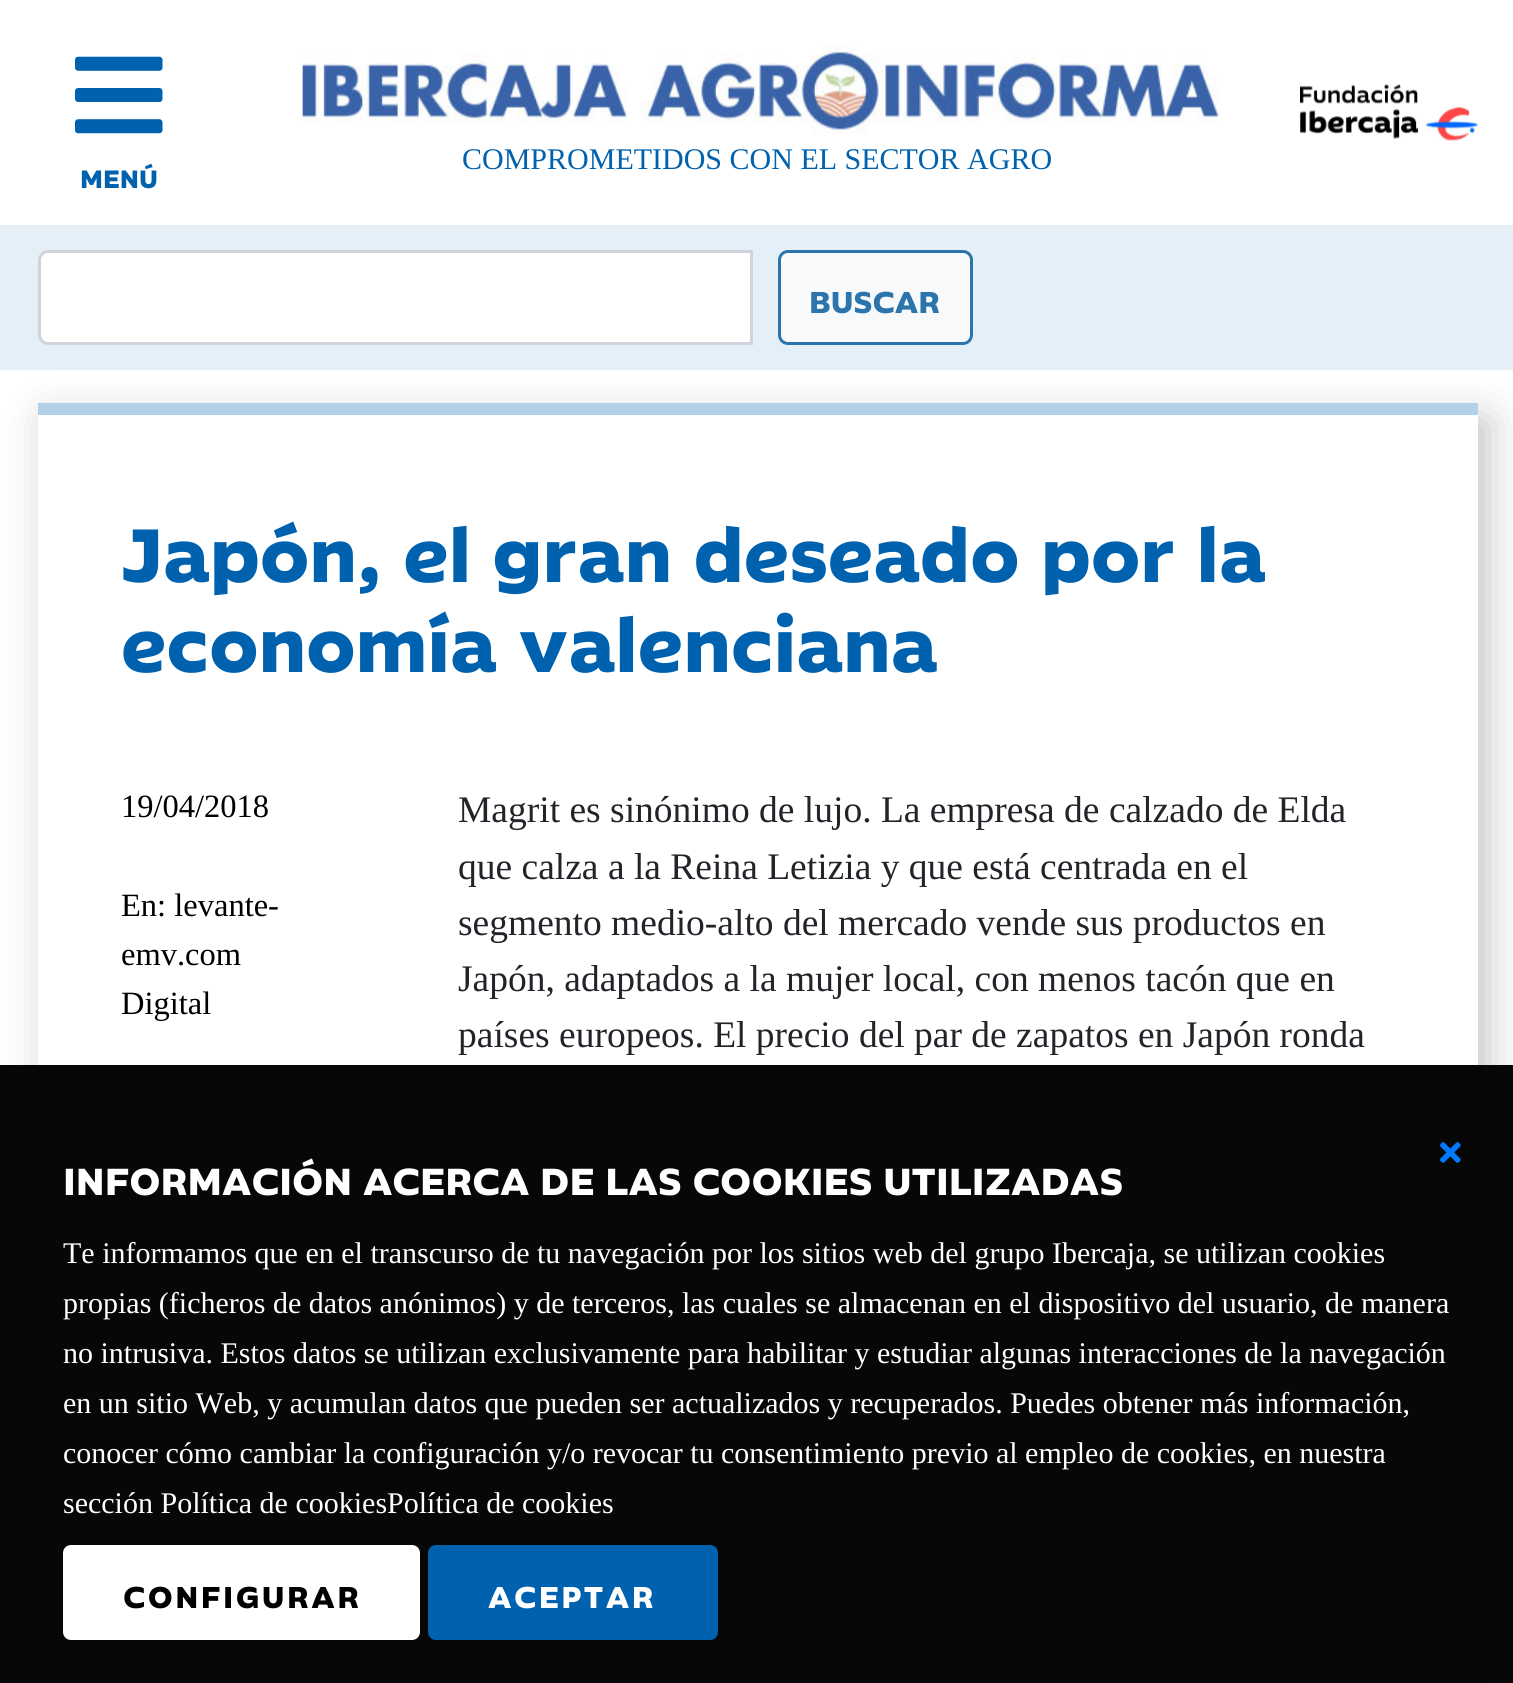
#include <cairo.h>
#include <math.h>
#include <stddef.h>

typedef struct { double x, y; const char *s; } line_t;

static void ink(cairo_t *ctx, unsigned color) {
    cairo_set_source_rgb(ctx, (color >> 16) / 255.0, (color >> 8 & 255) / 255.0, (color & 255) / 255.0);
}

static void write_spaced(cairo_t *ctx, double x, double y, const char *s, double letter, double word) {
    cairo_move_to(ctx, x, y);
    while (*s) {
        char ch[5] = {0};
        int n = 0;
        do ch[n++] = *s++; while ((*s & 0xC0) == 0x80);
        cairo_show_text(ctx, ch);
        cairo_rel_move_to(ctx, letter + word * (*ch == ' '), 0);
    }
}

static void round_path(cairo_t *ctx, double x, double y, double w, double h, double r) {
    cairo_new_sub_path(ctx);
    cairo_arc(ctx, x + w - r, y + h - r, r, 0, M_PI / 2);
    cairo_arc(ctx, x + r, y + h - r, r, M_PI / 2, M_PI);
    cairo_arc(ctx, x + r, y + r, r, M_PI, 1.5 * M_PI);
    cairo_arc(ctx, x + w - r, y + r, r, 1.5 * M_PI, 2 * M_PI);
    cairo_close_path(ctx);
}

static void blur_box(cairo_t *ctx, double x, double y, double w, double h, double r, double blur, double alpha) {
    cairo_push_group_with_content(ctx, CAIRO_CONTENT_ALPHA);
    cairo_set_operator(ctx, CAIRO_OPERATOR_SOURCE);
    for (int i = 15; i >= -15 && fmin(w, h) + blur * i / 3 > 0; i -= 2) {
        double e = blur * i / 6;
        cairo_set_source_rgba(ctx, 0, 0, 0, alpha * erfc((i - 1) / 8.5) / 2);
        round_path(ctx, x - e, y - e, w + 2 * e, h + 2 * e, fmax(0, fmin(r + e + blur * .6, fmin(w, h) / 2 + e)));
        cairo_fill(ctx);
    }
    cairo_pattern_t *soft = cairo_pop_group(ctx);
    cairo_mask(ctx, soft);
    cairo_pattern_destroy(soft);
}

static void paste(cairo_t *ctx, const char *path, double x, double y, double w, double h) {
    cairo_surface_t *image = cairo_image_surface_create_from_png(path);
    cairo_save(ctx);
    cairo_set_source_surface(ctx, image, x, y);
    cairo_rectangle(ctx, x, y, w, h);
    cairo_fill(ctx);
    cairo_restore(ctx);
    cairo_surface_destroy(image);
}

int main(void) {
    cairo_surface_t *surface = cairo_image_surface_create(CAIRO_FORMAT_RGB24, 1513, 1683);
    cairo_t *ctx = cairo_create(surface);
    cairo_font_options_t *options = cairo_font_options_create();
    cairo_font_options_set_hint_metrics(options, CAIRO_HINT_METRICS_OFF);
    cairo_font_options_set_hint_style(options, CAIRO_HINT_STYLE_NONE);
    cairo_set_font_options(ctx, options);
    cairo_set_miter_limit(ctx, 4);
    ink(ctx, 0xFFFFFF);
    cairo_paint(ctx);
    paste(ctx, "media/1.png", 1300, 84, 178, 57);
    paste(ctx, "media/2.png", 301, 43, 918, 92);
    cairo_select_font_face(ctx, "Liberation Serif", CAIRO_FONT_SLANT_NORMAL, CAIRO_FONT_WEIGHT_NORMAL);
    cairo_set_font_size(ctx, 30);
    ink(ctx, 0x0062AF);
    cairo_move_to(ctx, 462, 169);
    cairo_show_text(ctx, "COMPROMETIDOS CON EL SECTOR AGRO");
    paste(ctx, "media/3.png", 75, 56, 88, 78);
    cairo_select_font_face(ctx, "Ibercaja", CAIRO_FONT_SLANT_NORMAL, CAIRO_FONT_WEIGHT_BOLD);
    cairo_set_font_size(ctx, 25);
    cairo_move_to(ctx, 80, 188);
    cairo_show_text(ctx, "MENÚ");
    ink(ctx, 0xC2C2C2);
    blur_box(ctx, 48, 420, 1440, 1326, 0, 21, 1);
    ink(ctx, 0xE5EFF7);
    cairo_rectangle(ctx, 0, 225, 1513, 145);
    cairo_fill(ctx);
    ink(ctx, 0xFFFFFF);
    cairo_new_path(ctx);
    cairo_move_to(ctx, 48, 251.5);
    cairo_line_to(ctx, 751.5, 251.5);
    cairo_line_to(ctx, 751.5, 343.5);
    cairo_line_to(ctx, 48, 343.5);
    cairo_curve_to(ctx, 43.5, 343.5, 39.5, 339.5, 39.5, 335);
    cairo_line_to(ctx, 39.5, 260);
    cairo_curve_to(ctx, 39.5, 255.5, 43.5, 251.5, 48, 251.5);
    cairo_close_path(ctx);
    cairo_fill_preserve(ctx);
    ink(ctx, 0xCED4DA);
    cairo_set_line_width(ctx, 3);
    cairo_stroke(ctx);
    ink(ctx, 0xF8F9FA);
    round_path(ctx, 779.5, 251.5, 192, 92, 8.5);
    cairo_fill_preserve(ctx);
    ink(ctx, 0x2C74AC);
    cairo_stroke(ctx);
    cairo_set_font_size(ctx, 30);
    cairo_move_to(ctx, 809, 313);
    cairo_show_text(ctx, "BUSCAR");
    ink(ctx, 0xFFFFFF);
    cairo_rectangle(ctx, 38, 415, 1440, 1268);
    cairo_fill(ctx);
    cairo_set_source_rgba(ctx, 0, 0, 0, 0.7);
    cairo_rectangle(ctx, 0, 1065, 1513, 618);
    cairo_fill(ctx);
    cairo_set_source_rgba(ctx, 0, 0, 0, 0.9);
    cairo_rectangle(ctx, 0, 1065, 1513, 618);
    cairo_fill(ctx);
    paste(ctx, "media/4.png", 1440, 1142, 21, 21);
    cairo_set_font_size(ctx, 37.5);
    ink(ctx, 0xFFFFFF);
    cairo_move_to(ctx, 63, 1195);
    cairo_show_text(ctx, "INFORMACIÓN ACERCA DE LAS COOKIES UTILIZADAS");
    cairo_select_font_face(ctx, "Liberation Serif", CAIRO_FONT_SLANT_NORMAL, CAIRO_FONT_WEIGHT_NORMAL);
    cairo_set_font_size(ctx, 30);
    {
        static const line_t items[] = {
            {63, 1263, "Te informamos que en el transcurso de tu navegación por los sitios web del grupo Ibercaja, se utilizan cookies"},
            {63, 1313, "propias (ficheros de datos anónimos) y de terceros, las cuales se almacenan en el dispositivo del usuario, de manera"},
            {63, 1363, "no intrusiva. Estos datos se utilizan exclusivamente para habilitar y estudiar algunas interacciones de la navegación"},
            {63, 1413, "en un sitio Web, y acumulan datos que pueden ser actualizados y recuperados. Puedes obtener más información,"},
            {63, 1463, "conocer cómo cambiar la configuración y/o revocar tu consentimiento previo al empleo de cookies, en nuestra"},
            {63, 1513, "sección Política de cookiesPolítica de cookies"},
        };
        for (size_t i = 0; i < sizeof items / sizeof *items; i++) {
            cairo_move_to(ctx, items[i].x, items[i].y);
            cairo_show_text(ctx, items[i].s);
        }
    }
    round_path(ctx, 63, 1545, 357, 95, 8);
    cairo_fill(ctx);
    cairo_select_font_face(ctx, "Ibercaja", CAIRO_FONT_SLANT_NORMAL, CAIRO_FONT_WEIGHT_BOLD);
    ink(ctx, 0x000000);
    write_spaced(ctx, 123, 1608, "CONFIGURAR", 2.5, 0);
    ink(ctx, 0x0062AE);
    round_path(ctx, 428, 1545, 290, 95, 8);
    cairo_fill(ctx);
    ink(ctx, 0xFFFFFF);
    write_spaced(ctx, 488, 1608, "ACEPTAR", 2.5, 0);
    ink(ctx, 0xB2D0E7);
    cairo_rectangle(ctx, 38, 403, 1440, 12);
    cairo_fill(ctx);
    cairo_set_font_size(ctx, 75);
    ink(ctx, 0x0062AF);
    cairo_move_to(ctx, 121, 582);
    cairo_show_text(ctx, "Japón, el gran deseado por la");
    cairo_move_to(ctx, 121, 672);
    cairo_show_text(ctx, "economía valenciana");
    cairo_select_font_face(ctx, "Liberation Serif", CAIRO_FONT_SLANT_NORMAL, CAIRO_FONT_WEIGHT_NORMAL);
    cairo_set_font_size(ctx, 32.5);
    ink(ctx, 0x000000);
    {
        static const line_t items[] = {
            {121, 817, "19/04/2018"},
            {121, 916, "En: levante-"},
            {121, 965, "emv.com"},
            {121, 1014, "Digital"},
        };
        for (size_t i = 0; i < sizeof items / sizeof *items; i++) {
            cairo_move_to(ctx, items[i].x, items[i].y);
            cairo_show_text(ctx, items[i].s);
        }
    }
    cairo_set_font_size(ctx, 37.5);
    ink(ctx, 0x212529);
    {
        static const line_t items[] = {
            {458, 822, "Magrit es sinónimo de lujo. La empresa de calzado de Elda"},
            {458, 879, "que calza a la Reina Letizia y que está centrada en el"},
            {458, 935, "segmento medio-alto del mercado vende sus productos en"},
            {458, 991, "Japón, adaptados a la mujer local, con menos tacón que en"},
            {458, 1047, "países europeos. El precio del par de zapatos en Japón ronda"},
        };
        for (size_t i = 0; i < sizeof items / sizeof *items; i++) {
            cairo_move_to(ctx, items[i].x, items[i].y);
            cairo_show_text(ctx, items[i].s);
        }
    }
    cairo_surface_write_to_png(surface, "image.png");
    cairo_font_options_destroy(options);
    cairo_destroy(ctx);
    cairo_surface_destroy(surface);
    return 0;
}
